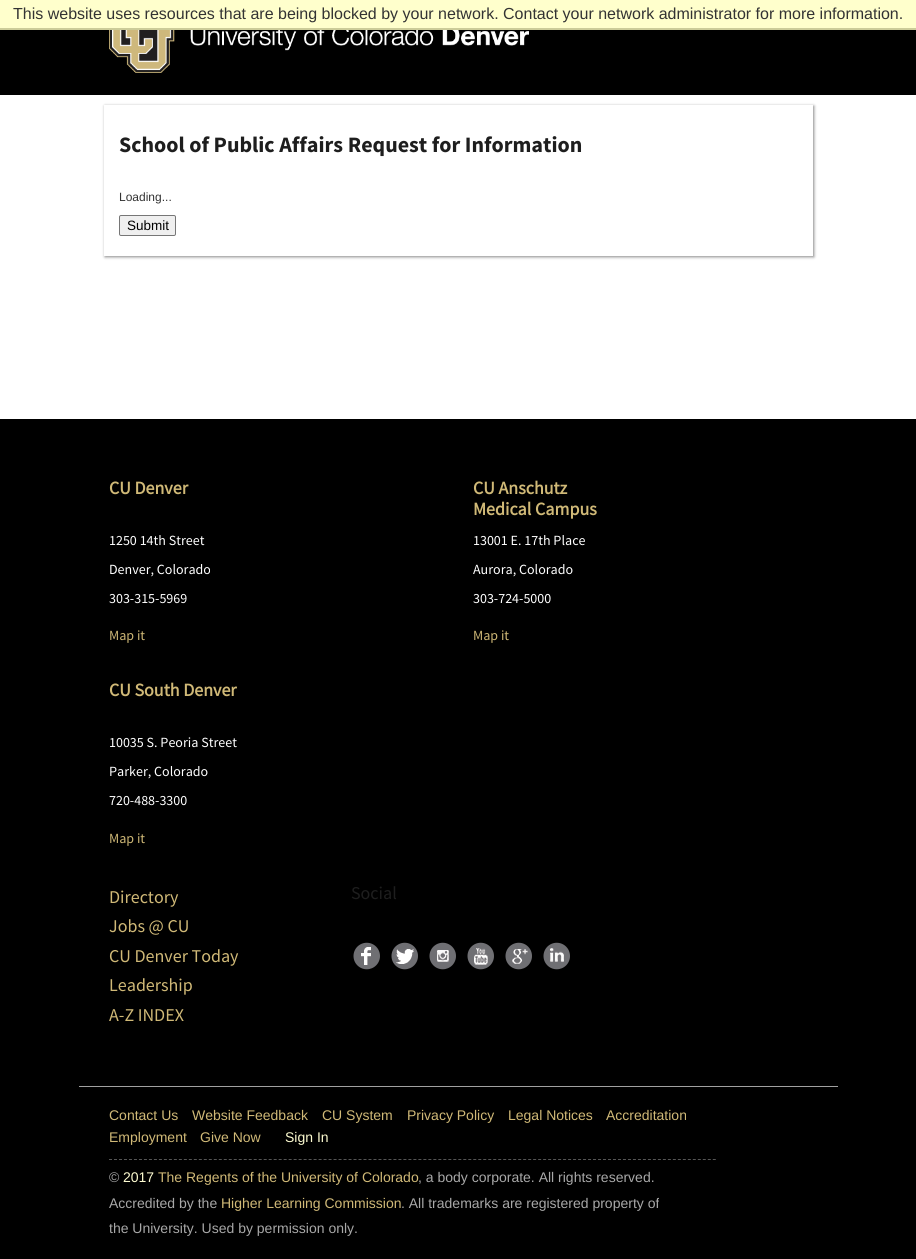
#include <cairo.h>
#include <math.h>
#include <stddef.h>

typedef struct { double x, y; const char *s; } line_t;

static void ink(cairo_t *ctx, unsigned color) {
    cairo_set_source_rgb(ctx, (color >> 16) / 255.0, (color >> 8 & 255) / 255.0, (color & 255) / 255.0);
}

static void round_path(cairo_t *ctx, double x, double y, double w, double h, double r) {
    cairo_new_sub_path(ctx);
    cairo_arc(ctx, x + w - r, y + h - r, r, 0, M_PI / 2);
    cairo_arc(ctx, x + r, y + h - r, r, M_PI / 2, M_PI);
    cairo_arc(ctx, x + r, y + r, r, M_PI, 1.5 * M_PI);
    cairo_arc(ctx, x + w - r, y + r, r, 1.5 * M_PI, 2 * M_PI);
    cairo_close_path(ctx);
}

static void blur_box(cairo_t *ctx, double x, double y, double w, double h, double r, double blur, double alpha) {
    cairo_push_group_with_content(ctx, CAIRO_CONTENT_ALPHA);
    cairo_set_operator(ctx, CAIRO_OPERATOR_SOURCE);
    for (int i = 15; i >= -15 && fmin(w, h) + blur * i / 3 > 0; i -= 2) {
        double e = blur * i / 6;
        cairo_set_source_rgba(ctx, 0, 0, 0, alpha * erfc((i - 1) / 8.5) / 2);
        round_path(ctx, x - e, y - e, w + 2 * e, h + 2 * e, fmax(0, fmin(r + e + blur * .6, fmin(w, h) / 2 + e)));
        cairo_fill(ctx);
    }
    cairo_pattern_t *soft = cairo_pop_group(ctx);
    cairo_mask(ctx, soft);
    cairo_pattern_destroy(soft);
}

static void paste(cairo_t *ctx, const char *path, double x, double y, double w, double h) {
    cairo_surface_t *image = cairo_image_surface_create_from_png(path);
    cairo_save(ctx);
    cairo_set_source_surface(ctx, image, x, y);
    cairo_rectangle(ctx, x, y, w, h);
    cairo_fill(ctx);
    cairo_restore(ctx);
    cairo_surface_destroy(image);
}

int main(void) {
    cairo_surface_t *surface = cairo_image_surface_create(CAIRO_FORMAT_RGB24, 916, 1259);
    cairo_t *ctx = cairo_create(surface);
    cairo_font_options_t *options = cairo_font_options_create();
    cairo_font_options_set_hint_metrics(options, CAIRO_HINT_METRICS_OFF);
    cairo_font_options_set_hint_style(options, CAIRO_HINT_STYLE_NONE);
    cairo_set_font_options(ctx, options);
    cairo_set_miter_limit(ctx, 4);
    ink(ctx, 0xFFFFFF);
    cairo_paint(ctx);
    ink(ctx, 0xFFFFCC);
    cairo_rectangle(ctx, 0, 0, 916, 28);
    cairo_fill(ctx);
    ink(ctx, 0xCCCC99);
    cairo_rectangle(ctx, 0, 28, 916, 2);
    cairo_fill(ctx);
    cairo_select_font_face(ctx, "Liberation Sans", CAIRO_FONT_SLANT_NORMAL, CAIRO_FONT_WEIGHT_NORMAL);
    cairo_set_font_size(ctx, 16);
    ink(ctx, 0x333333);
    cairo_move_to(ctx, 13, 19);
    cairo_show_text(ctx, "This website uses resources that are being blocked by your network. Contact your network administrator for more information.");
    ink(ctx, 0x000000);
    cairo_rectangle(ctx, 0, 30, 916, 65);
    cairo_fill(ctx);
    paste(ctx, "media/1.png", 109, 30, 420, 43);
    cairo_save(ctx);
    cairo_set_fill_rule(ctx, CAIRO_FILL_RULE_EVEN_ODD);
    cairo_new_path(ctx);
    cairo_move_to(ctx, 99, 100);
    cairo_line_to(ctx, 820, 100);
    cairo_line_to(ctx, 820, 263);
    cairo_line_to(ctx, 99, 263);
    cairo_close_path(ctx);
    cairo_move_to(ctx, 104, 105);
    cairo_line_to(ctx, 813, 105);
    cairo_line_to(ctx, 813, 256);
    cairo_line_to(ctx, 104, 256);
    cairo_close_path(ctx);
    cairo_clip(ctx);
    ink(ctx, 0x888888);
    blur_box(ctx, 105, 106, 709, 151, 0, 1.5, 1);
    cairo_restore(ctx);
    cairo_select_font_face(ctx, "Source Sans Pro", CAIRO_FONT_SLANT_NORMAL, CAIRO_FONT_WEIGHT_BOLD);
    cairo_set_font_size(ctx, 22);
    ink(ctx, 0x1E1E1E);
    cairo_move_to(ctx, 119, 152);
    cairo_show_text(ctx, "School of Public Affairs Request for Information");
    cairo_select_font_face(ctx, "Liberation Sans", CAIRO_FONT_SLANT_NORMAL, CAIRO_FONT_WEIGHT_NORMAL);
    cairo_set_font_size(ctx, 12);
    ink(ctx, 0x333333);
    cairo_move_to(ctx, 119, 201);
    cairo_show_text(ctx, "Loading...");
    ink(ctx, 0xEFEFEF);
    round_path(ctx, 119.5, 215.5, 56, 20, 1.5);
    cairo_fill_preserve(ctx);
    ink(ctx, 0x767676);
    cairo_set_line_width(ctx, 1);
    cairo_stroke(ctx);
    cairo_set_font_size(ctx, 13.5);
    ink(ctx, 0x000000);
    cairo_move_to(ctx, 127, 230);
    cairo_show_text(ctx, "Submit");
    cairo_rectangle(ctx, 0, 419, 916, 840);
    cairo_fill(ctx);
    ink(ctx, 0xA0A0A0);
    cairo_rectangle(ctx, 79, 1086, 759, 1);
    cairo_fill(ctx);
    cairo_select_font_face(ctx, "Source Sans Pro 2", CAIRO_FONT_SLANT_NORMAL, CAIRO_FONT_WEIGHT_BOLD);
    cairo_set_font_size(ctx, 18);
    ink(ctx, 0xD0B977);
    cairo_move_to(ctx, 109, 494);
    cairo_show_text(ctx, "CU Denver");
    cairo_select_font_face(ctx, "Source Sans Pro", CAIRO_FONT_SLANT_NORMAL, CAIRO_FONT_WEIGHT_NORMAL);
    cairo_set_font_size(ctx, 14);
    ink(ctx, 0xFFFFFF);
    {
        static const line_t items[] = {
            {109, 545, "1250 14th Street"},
            {109, 574, "Denver, Colorado"},
            {109, 603, "303-315-5969"},
        };
        for (size_t i = 0; i < sizeof items / sizeof *items; i++) {
            cairo_move_to(ctx, items[i].x, items[i].y);
            cairo_show_text(ctx, items[i].s);
        }
    }
    ink(ctx, 0xD0B977);
    cairo_move_to(ctx, 109, 640);
    cairo_show_text(ctx, "Map it");
    cairo_select_font_face(ctx, "Source Sans Pro 2", CAIRO_FONT_SLANT_NORMAL, CAIRO_FONT_WEIGHT_BOLD);
    cairo_set_font_size(ctx, 18);
    cairo_move_to(ctx, 473, 494);
    cairo_show_text(ctx, "CU Anschutz");
    cairo_move_to(ctx, 473, 515);
    cairo_show_text(ctx, "Medical Campus");
    cairo_select_font_face(ctx, "Source Sans Pro", CAIRO_FONT_SLANT_NORMAL, CAIRO_FONT_WEIGHT_NORMAL);
    cairo_set_font_size(ctx, 14);
    ink(ctx, 0xFFFFFF);
    {
        static const line_t items[] = {
            {473, 545, "13001 E. 17th Place"},
            {473, 574, "Aurora, Colorado"},
            {473, 603, "303-724-5000"},
        };
        for (size_t i = 0; i < sizeof items / sizeof *items; i++) {
            cairo_move_to(ctx, items[i].x, items[i].y);
            cairo_show_text(ctx, items[i].s);
        }
    }
    ink(ctx, 0xD0B977);
    cairo_move_to(ctx, 473, 640);
    cairo_show_text(ctx, "Map it");
    cairo_select_font_face(ctx, "Source Sans Pro 2", CAIRO_FONT_SLANT_NORMAL, CAIRO_FONT_WEIGHT_BOLD);
    cairo_set_font_size(ctx, 18);
    cairo_move_to(ctx, 109, 696);
    cairo_show_text(ctx, "CU South Denver");
    cairo_select_font_face(ctx, "Source Sans Pro", CAIRO_FONT_SLANT_NORMAL, CAIRO_FONT_WEIGHT_NORMAL);
    cairo_set_font_size(ctx, 14);
    ink(ctx, 0xFFFFFF);
    {
        static const line_t items[] = {
            {109, 747, "10035 S. Peoria Street"},
            {109, 776, "Parker, Colorado"},
            {109, 805, "720-488-3300"},
        };
        for (size_t i = 0; i < sizeof items / sizeof *items; i++) {
            cairo_move_to(ctx, items[i].x, items[i].y);
            cairo_show_text(ctx, items[i].s);
        }
    }
    ink(ctx, 0xD0B977);
    cairo_move_to(ctx, 109, 843);
    cairo_show_text(ctx, "Map it");
    cairo_set_font_size(ctx, 18);
    {
        static const line_t items[] = {
            {109, 903, "Directory"},
            {109, 932, "Jobs @ CU"},
            {109, 962, "CU Denver Today"},
            {109, 991, "Leadership"},
            {109, 1021, "A-Z INDEX"},
        };
        for (size_t i = 0; i < sizeof items / sizeof *items; i++) {
            cairo_move_to(ctx, items[i].x, items[i].y);
            cairo_show_text(ctx, items[i].s);
        }
    }
    ink(ctx, 0x1E1E1E);
    cairo_move_to(ctx, 351, 899);
    cairo_show_text(ctx, "Social");
    paste(ctx, "media/2.png", 353, 942, 27, 28);
    paste(ctx, "media/3.png", 391, 942, 27, 28);
    paste(ctx, "media/4.png", 429, 942, 27, 28);
    paste(ctx, "media/5.png", 467, 942, 27, 28);
    paste(ctx, "media/6.png", 505, 942, 27, 28);
    paste(ctx, "media/7.png", 543, 942, 27, 28);
    cairo_new_path(ctx);
    cairo_move_to(ctx, 109, 1159.5);
    cairo_line_to(ctx, 716, 1159.5);
    ink(ctx, 0x565656);
    cairo_set_dash(ctx, (double[]){3, 1.99}, 2, 0);
    cairo_stroke(ctx);
    cairo_select_font_face(ctx, "Liberation Sans", CAIRO_FONT_SLANT_NORMAL, CAIRO_FONT_WEIGHT_NORMAL);
    cairo_set_font_size(ctx, 14);
    ink(ctx, 0xD0B977);
    {
        static const line_t items[] = {
            {109, 1120, "Contact Us"},
            {192, 1120, "Website Feedback"},
            {322, 1120, "CU System"},
            {407, 1120, "Privacy Policy"},
            {508, 1120, "Legal Notices"},
            {606, 1120, "Accreditation"},
            {109, 1142, "Employment"},
            {200, 1142, "Give Now"},
        };
        for (size_t i = 0; i < sizeof items / sizeof *items; i++) {
            cairo_move_to(ctx, items[i].x, items[i].y);
            cairo_show_text(ctx, items[i].s);
        }
    }
    ink(ctx, 0xFDFBD0);
    cairo_move_to(ctx, 285, 1142);
    cairo_show_text(ctx, "Sign In");
    ink(ctx, 0xA8A8A8);
    cairo_move_to(ctx, 109, 1182);
    cairo_show_text(ctx, "©");
    ink(ctx, 0xFDFBD0);
    cairo_move_to(ctx, 123, 1182);
    cairo_show_text(ctx, "2017");
    ink(ctx, 0xD0B977);
    cairo_move_to(ctx, 158, 1182);
    cairo_show_text(ctx, "The Regents of the University of Colorado");
    ink(ctx, 0xA8A8A8);
    cairo_move_to(ctx, 418, 1182);
    cairo_show_text(ctx, ", a body corporate. All rights reserved.");
    cairo_move_to(ctx, 109, 1208);
    cairo_show_text(ctx, "Accredited by the");
    ink(ctx, 0xD0B977);
    cairo_move_to(ctx, 221, 1208);
    cairo_show_text(ctx, "Higher Learning Commission");
    ink(ctx, 0xA8A8A8);
    cairo_move_to(ctx, 401, 1208);
    cairo_show_text(ctx, ". All trademarks are registered property of");
    cairo_move_to(ctx, 109, 1233);
    cairo_show_text(ctx, "the University. Used by permission only.");
    cairo_surface_write_to_png(surface, "image.png");
    cairo_font_options_destroy(options);
    cairo_destroy(ctx);
    cairo_surface_destroy(surface);
    return 0;
}
